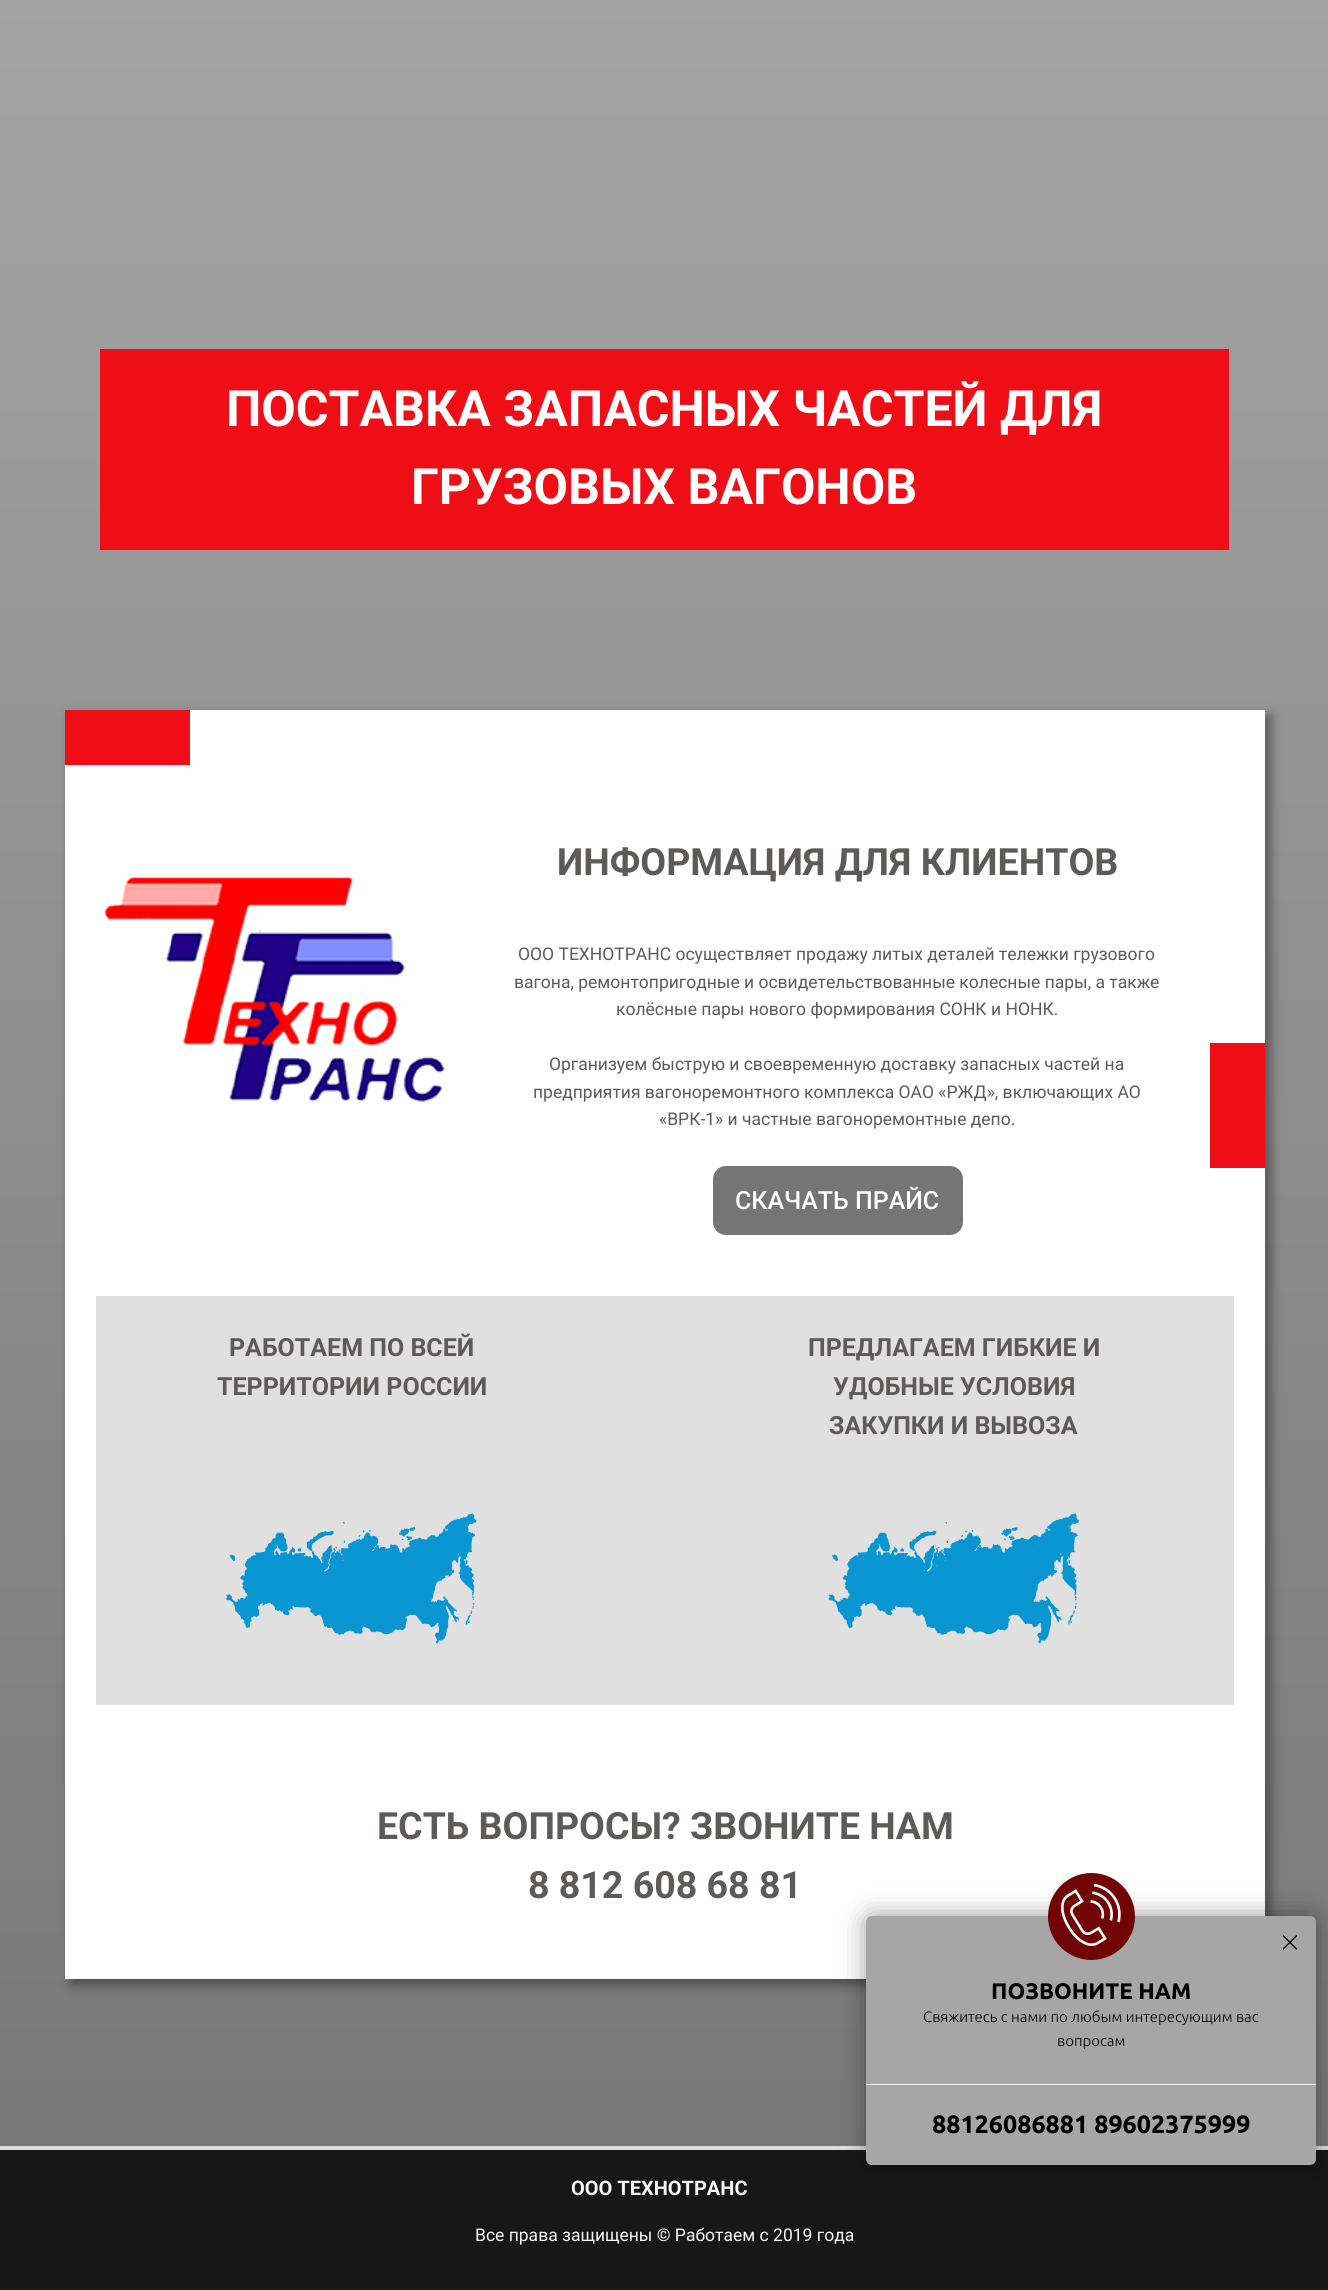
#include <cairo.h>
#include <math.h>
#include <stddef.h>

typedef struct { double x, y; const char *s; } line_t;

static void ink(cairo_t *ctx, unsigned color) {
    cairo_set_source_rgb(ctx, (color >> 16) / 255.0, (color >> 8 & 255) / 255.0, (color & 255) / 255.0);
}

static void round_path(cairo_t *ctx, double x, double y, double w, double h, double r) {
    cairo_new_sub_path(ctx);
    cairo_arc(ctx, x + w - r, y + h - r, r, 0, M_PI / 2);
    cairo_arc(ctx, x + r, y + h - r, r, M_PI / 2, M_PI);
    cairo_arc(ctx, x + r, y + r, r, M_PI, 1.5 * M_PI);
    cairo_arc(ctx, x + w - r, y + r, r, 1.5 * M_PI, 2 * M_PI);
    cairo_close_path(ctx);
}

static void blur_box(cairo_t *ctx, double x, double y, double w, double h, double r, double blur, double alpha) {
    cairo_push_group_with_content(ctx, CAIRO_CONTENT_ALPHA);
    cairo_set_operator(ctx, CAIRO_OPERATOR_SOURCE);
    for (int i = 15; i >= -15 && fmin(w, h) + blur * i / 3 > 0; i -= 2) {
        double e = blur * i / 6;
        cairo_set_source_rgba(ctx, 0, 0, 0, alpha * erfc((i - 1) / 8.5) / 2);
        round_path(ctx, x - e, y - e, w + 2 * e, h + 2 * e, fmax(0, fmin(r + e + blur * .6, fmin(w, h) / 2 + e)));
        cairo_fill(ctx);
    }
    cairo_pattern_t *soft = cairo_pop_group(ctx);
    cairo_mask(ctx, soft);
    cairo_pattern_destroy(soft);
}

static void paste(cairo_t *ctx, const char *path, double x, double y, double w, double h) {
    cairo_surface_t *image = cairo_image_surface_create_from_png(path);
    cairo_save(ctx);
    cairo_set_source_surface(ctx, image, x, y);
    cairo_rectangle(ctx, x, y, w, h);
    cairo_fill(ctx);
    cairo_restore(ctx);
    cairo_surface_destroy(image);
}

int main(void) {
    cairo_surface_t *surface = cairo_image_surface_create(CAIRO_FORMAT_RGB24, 1328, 2290);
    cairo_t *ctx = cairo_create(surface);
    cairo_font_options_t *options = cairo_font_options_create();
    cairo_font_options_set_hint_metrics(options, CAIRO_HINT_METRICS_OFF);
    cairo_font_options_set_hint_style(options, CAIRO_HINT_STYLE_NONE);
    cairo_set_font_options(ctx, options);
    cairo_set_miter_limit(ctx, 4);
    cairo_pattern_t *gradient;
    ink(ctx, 0x171717);
    cairo_paint(ctx);
    gradient = cairo_pattern_create_linear(664, -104, 664, 2146);
    cairo_pattern_add_color_stop_rgba(gradient, 0, 0.651, 0.651, 0.651, 1);
    cairo_pattern_add_color_stop_rgba(gradient, 1, 0.471, 0.471, 0.471, 1);
    cairo_set_source(ctx, gradient);
    cairo_pattern_destroy(gradient);
    cairo_rectangle(ctx, 0, 0, 1328, 2146);
    cairo_fill(ctx);
    ink(ctx, 0xF00E16);
    cairo_rectangle(ctx, 100, 349, 1129, 201);
    cairo_fill(ctx);
    cairo_select_font_face(ctx, "Roboto", CAIRO_FONT_SLANT_NORMAL, CAIRO_FONT_WEIGHT_BOLD);
    cairo_set_font_size(ctx, 50);
    ink(ctx, 0xFFFFFF);
    cairo_move_to(ctx, 226, 426);
    cairo_show_text(ctx, "ПОСТАВКА ЗАПАСНЫХ ЧАСТЕЙ ДЛЯ");
    cairo_move_to(ctx, 411, 504);
    cairo_show_text(ctx, "ГРУЗОВЫХ ВАГОНОВ");
    ink(ctx, 0x000000);
    blur_box(ctx, 71, 716, 1200, 1269, 0, 6, 0.4);
    ink(ctx, 0xFFFFFF);
    cairo_rectangle(ctx, 65, 710, 1200, 1269);
    cairo_fill(ctx);
    ink(ctx, 0xF00E16);
    cairo_rectangle(ctx, 65, 710, 125, 55);
    cairo_fill(ctx);
    cairo_set_font_size(ctx, 37.5);
    ink(ctx, 0x5E5A5A);
    cairo_move_to(ctx, 557, 875);
    cairo_show_text(ctx, "ИНФОРМАЦИЯ ДЛЯ КЛИЕНТОВ");
    paste(ctx, "media/1.png", 103, 876, 342, 227);
    cairo_select_font_face(ctx, "Roboto", CAIRO_FONT_SLANT_NORMAL, CAIRO_FONT_WEIGHT_NORMAL);
    cairo_set_font_size(ctx, 17.5);
    {
        static const line_t items[] = {
            {518, 960, "ООО ТЕХНОТРАНС осуществляет продажу литых деталей тележки грузового"},
            {514, 988, "вагона, ремонтопригодные и освидетельствованные колесные пары, а также"},
            {616, 1015, "колёсные пары нового формирования СОНК и НОНК."},
            {549, 1070, "Организуем быструю и своевременную доставку запасных частей на"},
            {533, 1098, "предприятия вагоноремонтного комплекса ОАО «РЖД», включающих АО"},
            {659, 1125, "«ВРК-1» и частные вагоноремонтные депо."},
        };
        for (size_t i = 0; i < sizeof items / sizeof *items; i++) {
            cairo_move_to(ctx, items[i].x, items[i].y);
            cairo_show_text(ctx, items[i].s);
        }
    }
    ink(ctx, 0xF00E16);
    cairo_rectangle(ctx, 1210, 1043, 55, 125);
    cairo_fill(ctx);
    ink(ctx, 0x757575);
    round_path(ctx, 713, 1166, 250, 69, 13);
    cairo_fill(ctx);
    cairo_select_font_face(ctx, "Roboto Medium", CAIRO_FONT_SLANT_NORMAL, CAIRO_FONT_WEIGHT_NORMAL);
    cairo_set_font_size(ctx, 25);
    ink(ctx, 0xFFFFFF);
    cairo_move_to(ctx, 735, 1209);
    cairo_show_text(ctx, "СКАЧАТЬ ПРАЙС");
    ink(ctx, 0xE0E0E0);
    cairo_rectangle(ctx, 96, 1296, 1138, 409);
    cairo_fill(ctx);
    cairo_select_font_face(ctx, "Roboto", CAIRO_FONT_SLANT_NORMAL, CAIRO_FONT_WEIGHT_BOLD);
    ink(ctx, 0x5E5A5A);
    {
        static const line_t items[] = {
            {229, 1356, "РАБОТАЕМ ПО ВСЕЙ"},
            {217, 1395, "ТЕРРИТОРИИ РОССИИ"},
            {808, 1356, "ПРЕДЛАГАЕМ ГИБКИЕ И"},
            {833, 1395, "УДОБНЫЕ УСЛОВИЯ"},
            {829, 1434, "ЗАКУПКИ И ВЫВОЗА"},
        };
        for (size_t i = 0; i < sizeof items / sizeof *items; i++) {
            cairo_move_to(ctx, items[i].x, items[i].y);
            cairo_show_text(ctx, items[i].s);
        }
    }
    paste(ctx, "media/2.png", 226, 1513, 251, 131);
    paste(ctx, "media/3.png", 828, 1513, 251, 131);
    cairo_set_font_size(ctx, 37.5);
    cairo_move_to(ctx, 377, 1839);
    cairo_show_text(ctx, "ЕСТЬ ВОПРОСЫ? ЗВОНИТЕ НАМ");
    cairo_move_to(ctx, 528, 1898);
    cairo_show_text(ctx, "8 812 608 68 81");
    ink(ctx, 0xDEDEDE);
    cairo_rectangle(ctx, 0, 2146, 1328, 4);
    cairo_fill(ctx);
    ink(ctx, 0x000000);
    blur_box(ctx, 866, 1916, 450, 249, 6, 12.5, 0.4);
    ink(ctx, 0xA6A6A6);
    round_path(ctx, 866, 1916, 450, 249, 6);
    cairo_fill(ctx);
    ink(ctx, 0x6F0403);
    cairo_arc(ctx, 1091.5, 1916.5, 43.5, 0, 2 * M_PI);
    cairo_fill(ctx);
    paste(ctx, "media/4.png", 1061, 1883, 60, 63);
    paste(ctx, "media/5.png", 1283, 1935, 15, 15);
    ink(ctx, 0xEEEEEE);
    cairo_rectangle(ctx, 866, 2084, 450, 1);
    cairo_fill(ctx);
    cairo_select_font_face(ctx, "Ubuntu", CAIRO_FONT_SLANT_NORMAL, CAIRO_FONT_WEIGHT_BOLD);
    cairo_set_font_size(ctx, 22.5);
    ink(ctx, 0x000000);
    cairo_move_to(ctx, 991, 1999);
    cairo_show_text(ctx, "ПОЗВОНИТЕ НАМ");
    cairo_select_font_face(ctx, "Ubuntu Light", CAIRO_FONT_SLANT_NORMAL, CAIRO_FONT_WEIGHT_NORMAL);
    cairo_set_font_size(ctx, 15);
    cairo_move_to(ctx, 923, 2022);
    cairo_show_text(ctx, "Свяжитесь с нами по любым интересующим вас");
    cairo_move_to(ctx, 1057, 2046);
    cairo_show_text(ctx, "вопросам");
    cairo_select_font_face(ctx, "Ubuntu", CAIRO_FONT_SLANT_NORMAL, CAIRO_FONT_WEIGHT_BOLD);
    cairo_set_font_size(ctx, 25);
    cairo_move_to(ctx, 932, 2133);
    cairo_show_text(ctx, "88126086881 89602375999");
    cairo_select_font_face(ctx, "Roboto", CAIRO_FONT_SLANT_NORMAL, CAIRO_FONT_WEIGHT_BOLD);
    cairo_set_font_size(ctx, 20);
    ink(ctx, 0xF7F7F7);
    cairo_move_to(ctx, 571, 2195);
    cairo_show_text(ctx, "ООО ТЕХНОТРАНС");
    cairo_select_font_face(ctx, "Roboto", CAIRO_FONT_SLANT_NORMAL, CAIRO_FONT_WEIGHT_NORMAL);
    cairo_set_font_size(ctx, 17.5);
    cairo_move_to(ctx, 475, 2241);
    cairo_show_text(ctx, "Все права защищены © Работаем с 2019 года");
    cairo_surface_write_to_png(surface, "image.png");
    cairo_font_options_destroy(options);
    cairo_destroy(ctx);
    cairo_surface_destroy(surface);
    return 0;
}
